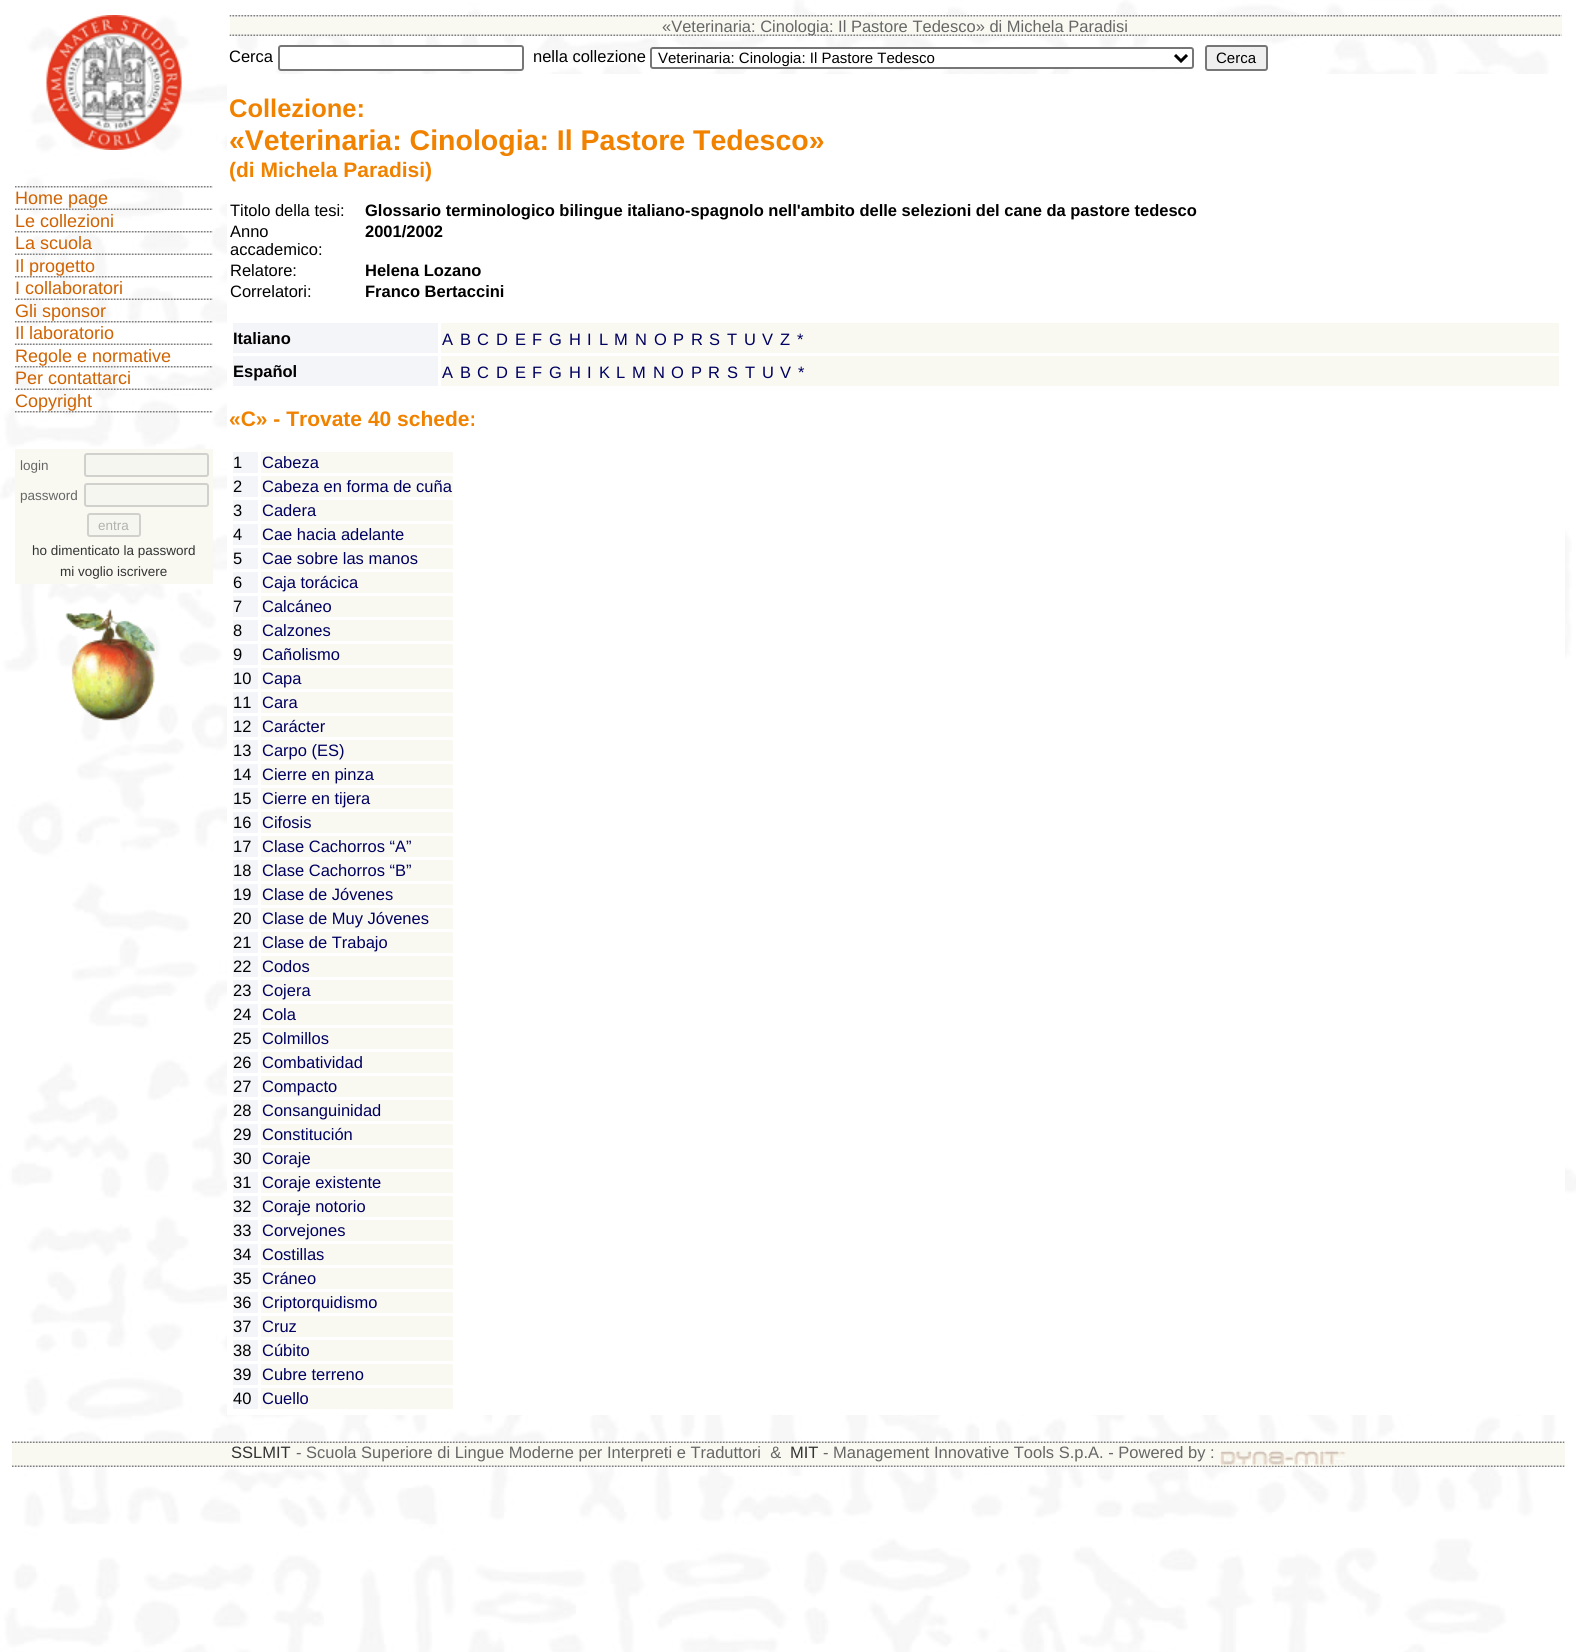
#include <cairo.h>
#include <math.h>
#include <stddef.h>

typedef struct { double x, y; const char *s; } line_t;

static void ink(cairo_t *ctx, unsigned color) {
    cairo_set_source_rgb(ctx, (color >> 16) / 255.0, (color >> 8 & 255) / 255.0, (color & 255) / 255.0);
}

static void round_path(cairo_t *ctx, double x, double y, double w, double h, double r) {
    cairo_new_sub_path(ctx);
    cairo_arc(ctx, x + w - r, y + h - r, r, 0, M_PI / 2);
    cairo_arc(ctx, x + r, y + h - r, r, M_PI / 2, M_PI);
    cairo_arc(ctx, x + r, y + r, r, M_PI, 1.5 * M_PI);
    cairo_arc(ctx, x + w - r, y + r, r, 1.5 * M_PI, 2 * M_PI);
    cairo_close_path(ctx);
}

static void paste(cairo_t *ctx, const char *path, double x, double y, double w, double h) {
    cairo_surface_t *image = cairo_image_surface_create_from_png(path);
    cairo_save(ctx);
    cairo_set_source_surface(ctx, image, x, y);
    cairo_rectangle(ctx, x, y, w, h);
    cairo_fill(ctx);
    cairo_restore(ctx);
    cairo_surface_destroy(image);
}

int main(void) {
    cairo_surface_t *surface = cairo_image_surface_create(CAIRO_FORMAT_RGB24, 1576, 1652);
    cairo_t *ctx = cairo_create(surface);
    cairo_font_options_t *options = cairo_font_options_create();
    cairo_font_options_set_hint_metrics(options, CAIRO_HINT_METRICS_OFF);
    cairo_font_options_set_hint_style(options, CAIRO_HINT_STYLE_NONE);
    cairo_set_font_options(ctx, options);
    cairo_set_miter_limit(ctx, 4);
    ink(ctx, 0xFFFFFF);
    cairo_paint(ctx);
    paste(ctx, "media/1.png", 0, 0, 1576, 1652);
    paste(ctx, "media/2.png", 229, 15, 1333, 2);
    ink(ctx, 0xF9F9F2);
    cairo_rectangle(ctx, 230, 17, 1332, 18);
    cairo_fill(ctx);
    paste(ctx, "media/3.png", 229, 34, 1333, 2);
    cairo_select_font_face(ctx, "Liberation Sans", CAIRO_FONT_SLANT_NORMAL, CAIRO_FONT_WEIGHT_NORMAL);
    cairo_set_font_size(ctx, 16.5);
    ink(ctx, 0x666666);
    cairo_move_to(ctx, 662, 32);
    cairo_show_text(ctx, "«Veterinaria: Cinologia: Il Pastore Tedesco» di Michela Paradisi");
    ink(ctx, 0x000000);
    cairo_move_to(ctx, 229, 62);
    cairo_show_text(ctx, "Cerca");
    ink(ctx, 0xFFFFFF);
    round_path(ctx, 279, 46, 244, 24, 2);
    cairo_fill_preserve(ctx);
    ink(ctx, 0x767676);
    cairo_stroke(ctx);
    ink(ctx, 0x000000);
    cairo_move_to(ctx, 533, 62);
    cairo_show_text(ctx, "nella collezione");
    ink(ctx, 0xFFFFFF);
    round_path(ctx, 651, 48, 542, 20, 2);
    cairo_fill_preserve(ctx);
    ink(ctx, 0x767676);
    cairo_stroke(ctx);
    cairo_new_path(ctx);
    cairo_move_to(ctx, 1175, 55);
    cairo_line_to(ctx, 1181, 61);
    cairo_line_to(ctx, 1187, 55);
    ink(ctx, 0x000000);
    cairo_set_line_width(ctx, 3);
    cairo_stroke(ctx);
    cairo_set_font_size(ctx, 15);
    cairo_move_to(ctx, 658, 63);
    cairo_show_text(ctx, "Veterinaria: Cinologia: Il Pastore Tedesco");
    ink(ctx, 0xEFEFEF);
    round_path(ctx, 1206, 46, 61, 24, 2);
    cairo_fill_preserve(ctx);
    ink(ctx, 0x767676);
    cairo_set_line_width(ctx, 2);
    cairo_stroke(ctx);
    ink(ctx, 0x000000);
    cairo_move_to(ctx, 1216, 63);
    cairo_show_text(ctx, "Cerca");
    paste(ctx, "media/4.png", 46, 15, 136, 135);
    paste(ctx, "media/5.png", 15, 186, 198, 2);
    cairo_set_font_size(ctx, 18);
    ink(ctx, 0xD06200);
    cairo_move_to(ctx, 15, 204);
    cairo_show_text(ctx, "Home page");
    paste(ctx, "media/6.png", 15, 208, 198, 2);
    cairo_move_to(ctx, 15, 227);
    cairo_show_text(ctx, "Le collezioni");
    paste(ctx, "media/7.png", 15, 231, 198, 2);
    cairo_move_to(ctx, 15, 249);
    cairo_show_text(ctx, "La scuola");
    paste(ctx, "media/8.png", 15, 253, 198, 2);
    cairo_move_to(ctx, 15, 272);
    cairo_show_text(ctx, "Il progetto");
    paste(ctx, "media/9.png", 15, 276, 198, 2);
    cairo_move_to(ctx, 15, 294);
    cairo_show_text(ctx, "I collaboratori");
    paste(ctx, "media/10.png", 15, 298, 198, 2);
    cairo_move_to(ctx, 15, 317);
    cairo_show_text(ctx, "Gli sponsor");
    paste(ctx, "media/11.png", 15, 321, 198, 2);
    cairo_move_to(ctx, 15, 339);
    cairo_show_text(ctx, "Il laboratorio");
    paste(ctx, "media/12.png", 15, 343, 198, 2);
    cairo_move_to(ctx, 15, 362);
    cairo_show_text(ctx, "Regole e normative");
    paste(ctx, "media/13.png", 15, 366, 198, 2);
    cairo_move_to(ctx, 15, 384);
    cairo_show_text(ctx, "Per contattarci");
    paste(ctx, "media/14.png", 15, 388, 198, 2);
    cairo_move_to(ctx, 15, 407);
    cairo_show_text(ctx, "Copyright");
    paste(ctx, "media/15.png", 15, 411, 198, 2);
    ink(ctx, 0xF9F9F2);
    cairo_rectangle(ctx, 15, 449, 198, 135);
    cairo_fill(ctx);
    cairo_set_font_size(ctx, 13.5);
    ink(ctx, 0x666666);
    cairo_move_to(ctx, 20, 470);
    cairo_show_text(ctx, "login");
    ink(ctx, 0xF6F6F1);
    round_path(ctx, 85, 454, 123, 22, 2);
    cairo_fill_preserve(ctx);
    ink(ctx, 0xD0D0CC);
    cairo_stroke(ctx);
    ink(ctx, 0x666666);
    cairo_move_to(ctx, 20, 500);
    cairo_show_text(ctx, "password");
    ink(ctx, 0xF6F6F1);
    round_path(ctx, 85, 484, 123, 22, 2);
    cairo_fill_preserve(ctx);
    ink(ctx, 0xD0D0CC);
    cairo_stroke(ctx);
    ink(ctx, 0xF6F6F1);
    round_path(ctx, 88, 514, 52, 22, 2);
    cairo_fill_preserve(ctx);
    ink(ctx, 0xD0D0CC);
    cairo_stroke(ctx);
    ink(ctx, 0xB1B1AE);
    cairo_move_to(ctx, 98, 530);
    cairo_show_text(ctx, "entra");
    ink(ctx, 0x333333);
    cairo_move_to(ctx, 32, 555);
    cairo_show_text(ctx, "ho dimenticato la password");
    cairo_move_to(ctx, 60, 576);
    cairo_show_text(ctx, "mi voglio iscrivere");
    paste(ctx, "media/16.png", 65, 608, 90, 113);
    ink(ctx, 0xFFFFFF);
    cairo_rectangle(ctx, 227, 74, 1338, 1341);
    cairo_fill(ctx);
    cairo_select_font_face(ctx, "Liberation Sans", CAIRO_FONT_SLANT_NORMAL, CAIRO_FONT_WEIGHT_BOLD);
    cairo_set_font_size(ctx, 25.5);
    ink(ctx, 0xF08200);
    cairo_move_to(ctx, 229, 117);
    cairo_show_text(ctx, "Collezione:");
    cairo_set_font_size(ctx, 28.5);
    cairo_move_to(ctx, 229, 150);
    cairo_show_text(ctx, "«Veterinaria: Cinologia: Il Pastore Tedesco»");
    cairo_set_font_size(ctx, 21);
    cairo_move_to(ctx, 229, 177);
    cairo_show_text(ctx, "(di Michela Paradisi)");
    cairo_select_font_face(ctx, "Liberation Sans", CAIRO_FONT_SLANT_NORMAL, CAIRO_FONT_WEIGHT_NORMAL);
    cairo_set_font_size(ctx, 16.5);
    ink(ctx, 0x000000);
    cairo_move_to(ctx, 230, 216);
    cairo_show_text(ctx, "Titolo della tesi:");
    cairo_select_font_face(ctx, "Liberation Sans", CAIRO_FONT_SLANT_NORMAL, CAIRO_FONT_WEIGHT_BOLD);
    cairo_move_to(ctx, 365, 216);
    cairo_show_text(ctx, "Glossario terminologico bilingue italiano-spagnolo nell'ambito delle selezioni del cane da pastore tedesco");
    cairo_select_font_face(ctx, "Liberation Sans", CAIRO_FONT_SLANT_NORMAL, CAIRO_FONT_WEIGHT_NORMAL);
    cairo_move_to(ctx, 230, 237);
    cairo_show_text(ctx, "Anno");
    cairo_move_to(ctx, 230, 255);
    cairo_show_text(ctx, "accademico:");
    cairo_select_font_face(ctx, "Liberation Sans", CAIRO_FONT_SLANT_NORMAL, CAIRO_FONT_WEIGHT_BOLD);
    cairo_move_to(ctx, 365, 237);
    cairo_show_text(ctx, "2001/2002");
    cairo_select_font_face(ctx, "Liberation Sans", CAIRO_FONT_SLANT_NORMAL, CAIRO_FONT_WEIGHT_NORMAL);
    cairo_move_to(ctx, 230, 276);
    cairo_show_text(ctx, "Relatore:");
    cairo_select_font_face(ctx, "Liberation Sans", CAIRO_FONT_SLANT_NORMAL, CAIRO_FONT_WEIGHT_BOLD);
    cairo_move_to(ctx, 365, 276);
    cairo_show_text(ctx, "Helena Lozano");
    cairo_select_font_face(ctx, "Liberation Sans", CAIRO_FONT_SLANT_NORMAL, CAIRO_FONT_WEIGHT_NORMAL);
    cairo_move_to(ctx, 230, 297);
    cairo_show_text(ctx, "Correlatori:");
    cairo_select_font_face(ctx, "Liberation Sans", CAIRO_FONT_SLANT_NORMAL, CAIRO_FONT_WEIGHT_BOLD);
    cairo_move_to(ctx, 365, 297);
    cairo_show_text(ctx, "Franco Bertaccini");
    ink(ctx, 0xF3F5F9);
    cairo_rectangle(ctx, 233, 323, 205, 30);
    cairo_fill(ctx);
    ink(ctx, 0x000000);
    cairo_move_to(ctx, 233, 344);
    cairo_show_text(ctx, "Italiano");
    ink(ctx, 0xF9F9F2);
    cairo_rectangle(ctx, 441, 323, 1118, 30);
    cairo_fill(ctx);
    cairo_select_font_face(ctx, "Liberation Sans", CAIRO_FONT_SLANT_NORMAL, CAIRO_FONT_WEIGHT_NORMAL);
    ink(ctx, 0x000060);
    {
        static const line_t items[] = {
            {442, 345, "A"},
            {460, 345, "B"},
            {477, 345, "C"},
            {496, 345, "D"},
            {515, 345, "E"},
            {532, 345, "F"},
            {549, 345, "G"},
            {569, 345, "H"},
            {587, 345, "I"},
            {599, 345, "L"},
            {614, 345, "M"},
            {635, 345, "N"},
            {654, 345, "O"},
            {673, 345, "P"},
            {691, 345, "R"},
            {709, 345, "S"},
            {727, 345, "T"},
            {744, 345, "U"},
            {762, 345, "V"},
            {780, 345, "Z"},
            {797, 345, "*"},
        };
        for (size_t i = 0; i < sizeof items / sizeof *items; i++) {
            cairo_move_to(ctx, items[i].x, items[i].y);
            cairo_show_text(ctx, items[i].s);
        }
    }
    ink(ctx, 0xF3F5F9);
    cairo_rectangle(ctx, 233, 356, 205, 30);
    cairo_fill(ctx);
    cairo_select_font_face(ctx, "Liberation Sans", CAIRO_FONT_SLANT_NORMAL, CAIRO_FONT_WEIGHT_BOLD);
    ink(ctx, 0x000000);
    cairo_move_to(ctx, 233, 377);
    cairo_show_text(ctx, "Español");
    ink(ctx, 0xF9F9F2);
    cairo_rectangle(ctx, 441, 356, 1118, 30);
    cairo_fill(ctx);
    cairo_select_font_face(ctx, "Liberation Sans", CAIRO_FONT_SLANT_NORMAL, CAIRO_FONT_WEIGHT_NORMAL);
    ink(ctx, 0x000060);
    {
        static const line_t items[] = {
            {442, 378, "A"},
            {460, 378, "B"},
            {477, 378, "C"},
            {496, 378, "D"},
            {515, 378, "E"},
            {532, 378, "F"},
            {549, 378, "G"},
            {569, 378, "H"},
            {587, 378, "I"},
            {599, 378, "K"},
            {616, 378, "L"},
            {632, 378, "M"},
            {653, 378, "N"},
            {671, 378, "O"},
            {691, 378, "P"},
            {708, 378, "R"},
            {727, 378, "S"},
            {745, 378, "T"},
            {762, 378, "U"},
            {780, 378, "V"},
            {798, 378, "*"},
        };
        for (size_t i = 0; i < sizeof items / sizeof *items; i++) {
            cairo_move_to(ctx, items[i].x, items[i].y);
            cairo_show_text(ctx, items[i].s);
        }
    }
    cairo_select_font_face(ctx, "Liberation Sans", CAIRO_FONT_SLANT_NORMAL, CAIRO_FONT_WEIGHT_BOLD);
    cairo_set_font_size(ctx, 21);
    ink(ctx, 0xF08200);
    cairo_move_to(ctx, 229, 426);
    cairo_show_text(ctx, "«C» - Trovate 40 schede:");
    ink(ctx, 0xF3F5F9);
    cairo_rectangle(ctx, 233, 452, 25, 21);
    cairo_fill(ctx);
    cairo_select_font_face(ctx, "Liberation Sans", CAIRO_FONT_SLANT_NORMAL, CAIRO_FONT_WEIGHT_NORMAL);
    cairo_set_font_size(ctx, 16.5);
    ink(ctx, 0x000000);
    cairo_move_to(ctx, 233, 468);
    cairo_show_text(ctx, "1");
    ink(ctx, 0xF9F9F2);
    cairo_rectangle(ctx, 261, 452, 192, 21);
    cairo_fill(ctx);
    ink(ctx, 0x000060);
    cairo_move_to(ctx, 262, 468);
    cairo_show_text(ctx, "Cabeza");
    ink(ctx, 0xF3F5F9);
    cairo_rectangle(ctx, 233, 476, 25, 21);
    cairo_fill(ctx);
    ink(ctx, 0x000000);
    cairo_move_to(ctx, 233, 492);
    cairo_show_text(ctx, "2");
    ink(ctx, 0xF9F9F2);
    cairo_rectangle(ctx, 261, 476, 192, 21);
    cairo_fill(ctx);
    ink(ctx, 0x000060);
    cairo_move_to(ctx, 262, 492);
    cairo_show_text(ctx, "Cabeza en forma de cuña");
    ink(ctx, 0xF3F5F9);
    cairo_rectangle(ctx, 233, 500, 25, 21);
    cairo_fill(ctx);
    ink(ctx, 0x000000);
    cairo_move_to(ctx, 233, 516);
    cairo_show_text(ctx, "3");
    ink(ctx, 0xF9F9F2);
    cairo_rectangle(ctx, 261, 500, 192, 21);
    cairo_fill(ctx);
    ink(ctx, 0x000060);
    cairo_move_to(ctx, 262, 516);
    cairo_show_text(ctx, "Cadera");
    ink(ctx, 0xF3F5F9);
    cairo_rectangle(ctx, 233, 524, 25, 21);
    cairo_fill(ctx);
    ink(ctx, 0x000000);
    cairo_move_to(ctx, 233, 540);
    cairo_show_text(ctx, "4");
    ink(ctx, 0xF9F9F2);
    cairo_rectangle(ctx, 261, 524, 192, 21);
    cairo_fill(ctx);
    ink(ctx, 0x000060);
    cairo_move_to(ctx, 262, 540);
    cairo_show_text(ctx, "Cae hacia adelante");
    ink(ctx, 0xF3F5F9);
    cairo_rectangle(ctx, 233, 548, 25, 21);
    cairo_fill(ctx);
    ink(ctx, 0x000000);
    cairo_move_to(ctx, 233, 564);
    cairo_show_text(ctx, "5");
    ink(ctx, 0xF9F9F2);
    cairo_rectangle(ctx, 261, 548, 192, 21);
    cairo_fill(ctx);
    ink(ctx, 0x000060);
    cairo_move_to(ctx, 262, 564);
    cairo_show_text(ctx, "Cae sobre las manos");
    ink(ctx, 0xF3F5F9);
    cairo_rectangle(ctx, 233, 572, 25, 21);
    cairo_fill(ctx);
    ink(ctx, 0x000000);
    cairo_move_to(ctx, 233, 588);
    cairo_show_text(ctx, "6");
    ink(ctx, 0xF9F9F2);
    cairo_rectangle(ctx, 261, 572, 192, 21);
    cairo_fill(ctx);
    ink(ctx, 0x000060);
    cairo_move_to(ctx, 262, 588);
    cairo_show_text(ctx, "Caja torácica");
    ink(ctx, 0xF3F5F9);
    cairo_rectangle(ctx, 233, 596, 25, 21);
    cairo_fill(ctx);
    ink(ctx, 0x000000);
    cairo_move_to(ctx, 233, 612);
    cairo_show_text(ctx, "7");
    ink(ctx, 0xF9F9F2);
    cairo_rectangle(ctx, 261, 596, 192, 21);
    cairo_fill(ctx);
    ink(ctx, 0x000060);
    cairo_move_to(ctx, 262, 612);
    cairo_show_text(ctx, "Calcáneo");
    ink(ctx, 0xF3F5F9);
    cairo_rectangle(ctx, 233, 620, 25, 21);
    cairo_fill(ctx);
    ink(ctx, 0x000000);
    cairo_move_to(ctx, 233, 636);
    cairo_show_text(ctx, "8");
    ink(ctx, 0xF9F9F2);
    cairo_rectangle(ctx, 261, 620, 192, 21);
    cairo_fill(ctx);
    ink(ctx, 0x000060);
    cairo_move_to(ctx, 262, 636);
    cairo_show_text(ctx, "Calzones");
    ink(ctx, 0xF3F5F9);
    cairo_rectangle(ctx, 233, 644, 25, 21);
    cairo_fill(ctx);
    ink(ctx, 0x000000);
    cairo_move_to(ctx, 233, 660);
    cairo_show_text(ctx, "9");
    ink(ctx, 0xF9F9F2);
    cairo_rectangle(ctx, 261, 644, 192, 21);
    cairo_fill(ctx);
    ink(ctx, 0x000060);
    cairo_move_to(ctx, 262, 660);
    cairo_show_text(ctx, "Cañolismo");
    ink(ctx, 0xF3F5F9);
    cairo_rectangle(ctx, 233, 668, 25, 21);
    cairo_fill(ctx);
    ink(ctx, 0x000000);
    cairo_move_to(ctx, 233, 684);
    cairo_show_text(ctx, "10");
    ink(ctx, 0xF9F9F2);
    cairo_rectangle(ctx, 261, 668, 192, 21);
    cairo_fill(ctx);
    ink(ctx, 0x000060);
    cairo_move_to(ctx, 262, 684);
    cairo_show_text(ctx, "Capa");
    ink(ctx, 0xF3F5F9);
    cairo_rectangle(ctx, 233, 692, 25, 21);
    cairo_fill(ctx);
    ink(ctx, 0x000000);
    cairo_move_to(ctx, 233, 708);
    cairo_show_text(ctx, "11");
    ink(ctx, 0xF9F9F2);
    cairo_rectangle(ctx, 261, 692, 192, 21);
    cairo_fill(ctx);
    ink(ctx, 0x000060);
    cairo_move_to(ctx, 262, 708);
    cairo_show_text(ctx, "Cara");
    ink(ctx, 0xF3F5F9);
    cairo_rectangle(ctx, 233, 716, 25, 21);
    cairo_fill(ctx);
    ink(ctx, 0x000000);
    cairo_move_to(ctx, 233, 732);
    cairo_show_text(ctx, "12");
    ink(ctx, 0xF9F9F2);
    cairo_rectangle(ctx, 261, 716, 192, 21);
    cairo_fill(ctx);
    ink(ctx, 0x000060);
    cairo_move_to(ctx, 262, 732);
    cairo_show_text(ctx, "Carácter");
    ink(ctx, 0xF3F5F9);
    cairo_rectangle(ctx, 233, 740, 25, 21);
    cairo_fill(ctx);
    ink(ctx, 0x000000);
    cairo_move_to(ctx, 233, 756);
    cairo_show_text(ctx, "13");
    ink(ctx, 0xF9F9F2);
    cairo_rectangle(ctx, 261, 740, 192, 21);
    cairo_fill(ctx);
    ink(ctx, 0x000060);
    cairo_move_to(ctx, 262, 756);
    cairo_show_text(ctx, "Carpo (ES)");
    ink(ctx, 0xF3F5F9);
    cairo_rectangle(ctx, 233, 764, 25, 21);
    cairo_fill(ctx);
    ink(ctx, 0x000000);
    cairo_move_to(ctx, 233, 780);
    cairo_show_text(ctx, "14");
    ink(ctx, 0xF9F9F2);
    cairo_rectangle(ctx, 261, 764, 192, 21);
    cairo_fill(ctx);
    ink(ctx, 0x000060);
    cairo_move_to(ctx, 262, 780);
    cairo_show_text(ctx, "Cierre en pinza");
    ink(ctx, 0xF3F5F9);
    cairo_rectangle(ctx, 233, 788, 25, 21);
    cairo_fill(ctx);
    ink(ctx, 0x000000);
    cairo_move_to(ctx, 233, 804);
    cairo_show_text(ctx, "15");
    ink(ctx, 0xF9F9F2);
    cairo_rectangle(ctx, 261, 788, 192, 21);
    cairo_fill(ctx);
    ink(ctx, 0x000060);
    cairo_move_to(ctx, 262, 804);
    cairo_show_text(ctx, "Cierre en tijera");
    ink(ctx, 0xF3F5F9);
    cairo_rectangle(ctx, 233, 812, 25, 21);
    cairo_fill(ctx);
    ink(ctx, 0x000000);
    cairo_move_to(ctx, 233, 828);
    cairo_show_text(ctx, "16");
    ink(ctx, 0xF9F9F2);
    cairo_rectangle(ctx, 261, 812, 192, 21);
    cairo_fill(ctx);
    ink(ctx, 0x000060);
    cairo_move_to(ctx, 262, 828);
    cairo_show_text(ctx, "Cifosis");
    ink(ctx, 0xF3F5F9);
    cairo_rectangle(ctx, 233, 836, 25, 21);
    cairo_fill(ctx);
    ink(ctx, 0x000000);
    cairo_move_to(ctx, 233, 852);
    cairo_show_text(ctx, "17");
    ink(ctx, 0xF9F9F2);
    cairo_rectangle(ctx, 261, 836, 192, 21);
    cairo_fill(ctx);
    ink(ctx, 0x000060);
    cairo_move_to(ctx, 262, 852);
    cairo_show_text(ctx, "Clase Cachorros “A”");
    ink(ctx, 0xF3F5F9);
    cairo_rectangle(ctx, 233, 860, 25, 21);
    cairo_fill(ctx);
    ink(ctx, 0x000000);
    cairo_move_to(ctx, 233, 876);
    cairo_show_text(ctx, "18");
    ink(ctx, 0xF9F9F2);
    cairo_rectangle(ctx, 261, 860, 192, 21);
    cairo_fill(ctx);
    ink(ctx, 0x000060);
    cairo_move_to(ctx, 262, 876);
    cairo_show_text(ctx, "Clase Cachorros “B”");
    ink(ctx, 0xF3F5F9);
    cairo_rectangle(ctx, 233, 884, 25, 21);
    cairo_fill(ctx);
    ink(ctx, 0x000000);
    cairo_move_to(ctx, 233, 900);
    cairo_show_text(ctx, "19");
    ink(ctx, 0xF9F9F2);
    cairo_rectangle(ctx, 261, 884, 192, 21);
    cairo_fill(ctx);
    ink(ctx, 0x000060);
    cairo_move_to(ctx, 262, 900);
    cairo_show_text(ctx, "Clase de Jóvenes");
    ink(ctx, 0xF3F5F9);
    cairo_rectangle(ctx, 233, 908, 25, 21);
    cairo_fill(ctx);
    ink(ctx, 0x000000);
    cairo_move_to(ctx, 233, 924);
    cairo_show_text(ctx, "20");
    ink(ctx, 0xF9F9F2);
    cairo_rectangle(ctx, 261, 908, 192, 21);
    cairo_fill(ctx);
    ink(ctx, 0x000060);
    cairo_move_to(ctx, 262, 924);
    cairo_show_text(ctx, "Clase de Muy Jóvenes");
    ink(ctx, 0xF3F5F9);
    cairo_rectangle(ctx, 233, 932, 25, 21);
    cairo_fill(ctx);
    ink(ctx, 0x000000);
    cairo_move_to(ctx, 233, 948);
    cairo_show_text(ctx, "21");
    ink(ctx, 0xF9F9F2);
    cairo_rectangle(ctx, 261, 932, 192, 21);
    cairo_fill(ctx);
    ink(ctx, 0x000060);
    cairo_move_to(ctx, 262, 948);
    cairo_show_text(ctx, "Clase de Trabajo");
    ink(ctx, 0xF3F5F9);
    cairo_rectangle(ctx, 233, 956, 25, 21);
    cairo_fill(ctx);
    ink(ctx, 0x000000);
    cairo_move_to(ctx, 233, 972);
    cairo_show_text(ctx, "22");
    ink(ctx, 0xF9F9F2);
    cairo_rectangle(ctx, 261, 956, 192, 21);
    cairo_fill(ctx);
    ink(ctx, 0x000060);
    cairo_move_to(ctx, 262, 972);
    cairo_show_text(ctx, "Codos");
    ink(ctx, 0xF3F5F9);
    cairo_rectangle(ctx, 233, 980, 25, 21);
    cairo_fill(ctx);
    ink(ctx, 0x000000);
    cairo_move_to(ctx, 233, 996);
    cairo_show_text(ctx, "23");
    ink(ctx, 0xF9F9F2);
    cairo_rectangle(ctx, 261, 980, 192, 21);
    cairo_fill(ctx);
    ink(ctx, 0x000060);
    cairo_move_to(ctx, 262, 996);
    cairo_show_text(ctx, "Cojera");
    ink(ctx, 0xF3F5F9);
    cairo_rectangle(ctx, 233, 1004, 25, 21);
    cairo_fill(ctx);
    ink(ctx, 0x000000);
    cairo_move_to(ctx, 233, 1020);
    cairo_show_text(ctx, "24");
    ink(ctx, 0xF9F9F2);
    cairo_rectangle(ctx, 261, 1004, 192, 21);
    cairo_fill(ctx);
    ink(ctx, 0x000060);
    cairo_move_to(ctx, 262, 1020);
    cairo_show_text(ctx, "Cola");
    ink(ctx, 0xF3F5F9);
    cairo_rectangle(ctx, 233, 1028, 25, 21);
    cairo_fill(ctx);
    ink(ctx, 0x000000);
    cairo_move_to(ctx, 233, 1044);
    cairo_show_text(ctx, "25");
    ink(ctx, 0xF9F9F2);
    cairo_rectangle(ctx, 261, 1028, 192, 21);
    cairo_fill(ctx);
    ink(ctx, 0x000060);
    cairo_move_to(ctx, 262, 1044);
    cairo_show_text(ctx, "Colmillos");
    ink(ctx, 0xF3F5F9);
    cairo_rectangle(ctx, 233, 1052, 25, 21);
    cairo_fill(ctx);
    ink(ctx, 0x000000);
    cairo_move_to(ctx, 233, 1068);
    cairo_show_text(ctx, "26");
    ink(ctx, 0xF9F9F2);
    cairo_rectangle(ctx, 261, 1052, 192, 21);
    cairo_fill(ctx);
    ink(ctx, 0x000060);
    cairo_move_to(ctx, 262, 1068);
    cairo_show_text(ctx, "Combatividad");
    ink(ctx, 0xF3F5F9);
    cairo_rectangle(ctx, 233, 1076, 25, 21);
    cairo_fill(ctx);
    ink(ctx, 0x000000);
    cairo_move_to(ctx, 233, 1092);
    cairo_show_text(ctx, "27");
    ink(ctx, 0xF9F9F2);
    cairo_rectangle(ctx, 261, 1076, 192, 21);
    cairo_fill(ctx);
    ink(ctx, 0x000060);
    cairo_move_to(ctx, 262, 1092);
    cairo_show_text(ctx, "Compacto");
    ink(ctx, 0xF3F5F9);
    cairo_rectangle(ctx, 233, 1100, 25, 21);
    cairo_fill(ctx);
    ink(ctx, 0x000000);
    cairo_move_to(ctx, 233, 1116);
    cairo_show_text(ctx, "28");
    ink(ctx, 0xF9F9F2);
    cairo_rectangle(ctx, 261, 1100, 192, 21);
    cairo_fill(ctx);
    ink(ctx, 0x000060);
    cairo_move_to(ctx, 262, 1116);
    cairo_show_text(ctx, "Consanguinidad");
    ink(ctx, 0xF3F5F9);
    cairo_rectangle(ctx, 233, 1124, 25, 21);
    cairo_fill(ctx);
    ink(ctx, 0x000000);
    cairo_move_to(ctx, 233, 1140);
    cairo_show_text(ctx, "29");
    ink(ctx, 0xF9F9F2);
    cairo_rectangle(ctx, 261, 1124, 192, 21);
    cairo_fill(ctx);
    ink(ctx, 0x000060);
    cairo_move_to(ctx, 262, 1140);
    cairo_show_text(ctx, "Constitución");
    ink(ctx, 0xF3F5F9);
    cairo_rectangle(ctx, 233, 1148, 25, 21);
    cairo_fill(ctx);
    ink(ctx, 0x000000);
    cairo_move_to(ctx, 233, 1164);
    cairo_show_text(ctx, "30");
    ink(ctx, 0xF9F9F2);
    cairo_rectangle(ctx, 261, 1148, 192, 21);
    cairo_fill(ctx);
    ink(ctx, 0x000060);
    cairo_move_to(ctx, 262, 1164);
    cairo_show_text(ctx, "Coraje");
    ink(ctx, 0xF3F5F9);
    cairo_rectangle(ctx, 233, 1172, 25, 21);
    cairo_fill(ctx);
    ink(ctx, 0x000000);
    cairo_move_to(ctx, 233, 1188);
    cairo_show_text(ctx, "31");
    ink(ctx, 0xF9F9F2);
    cairo_rectangle(ctx, 261, 1172, 192, 21);
    cairo_fill(ctx);
    ink(ctx, 0x000060);
    cairo_move_to(ctx, 262, 1188);
    cairo_show_text(ctx, "Coraje existente");
    ink(ctx, 0xF3F5F9);
    cairo_rectangle(ctx, 233, 1196, 25, 21);
    cairo_fill(ctx);
    ink(ctx, 0x000000);
    cairo_move_to(ctx, 233, 1212);
    cairo_show_text(ctx, "32");
    ink(ctx, 0xF9F9F2);
    cairo_rectangle(ctx, 261, 1196, 192, 21);
    cairo_fill(ctx);
    ink(ctx, 0x000060);
    cairo_move_to(ctx, 262, 1212);
    cairo_show_text(ctx, "Coraje notorio");
    ink(ctx, 0xF3F5F9);
    cairo_rectangle(ctx, 233, 1220, 25, 21);
    cairo_fill(ctx);
    ink(ctx, 0x000000);
    cairo_move_to(ctx, 233, 1236);
    cairo_show_text(ctx, "33");
    ink(ctx, 0xF9F9F2);
    cairo_rectangle(ctx, 261, 1220, 192, 21);
    cairo_fill(ctx);
    ink(ctx, 0x000060);
    cairo_move_to(ctx, 262, 1236);
    cairo_show_text(ctx, "Corvejones");
    ink(ctx, 0xF3F5F9);
    cairo_rectangle(ctx, 233, 1244, 25, 21);
    cairo_fill(ctx);
    ink(ctx, 0x000000);
    cairo_move_to(ctx, 233, 1260);
    cairo_show_text(ctx, "34");
    ink(ctx, 0xF9F9F2);
    cairo_rectangle(ctx, 261, 1244, 192, 21);
    cairo_fill(ctx);
    ink(ctx, 0x000060);
    cairo_move_to(ctx, 262, 1260);
    cairo_show_text(ctx, "Costillas");
    ink(ctx, 0xF3F5F9);
    cairo_rectangle(ctx, 233, 1268, 25, 21);
    cairo_fill(ctx);
    ink(ctx, 0x000000);
    cairo_move_to(ctx, 233, 1284);
    cairo_show_text(ctx, "35");
    ink(ctx, 0xF9F9F2);
    cairo_rectangle(ctx, 261, 1268, 192, 21);
    cairo_fill(ctx);
    ink(ctx, 0x000060);
    cairo_move_to(ctx, 262, 1284);
    cairo_show_text(ctx, "Cráneo");
    ink(ctx, 0xF3F5F9);
    cairo_rectangle(ctx, 233, 1292, 25, 21);
    cairo_fill(ctx);
    ink(ctx, 0x000000);
    cairo_move_to(ctx, 233, 1308);
    cairo_show_text(ctx, "36");
    ink(ctx, 0xF9F9F2);
    cairo_rectangle(ctx, 261, 1292, 192, 21);
    cairo_fill(ctx);
    ink(ctx, 0x000060);
    cairo_move_to(ctx, 262, 1308);
    cairo_show_text(ctx, "Criptorquidismo");
    ink(ctx, 0xF3F5F9);
    cairo_rectangle(ctx, 233, 1316, 25, 21);
    cairo_fill(ctx);
    ink(ctx, 0x000000);
    cairo_move_to(ctx, 233, 1332);
    cairo_show_text(ctx, "37");
    ink(ctx, 0xF9F9F2);
    cairo_rectangle(ctx, 261, 1316, 192, 21);
    cairo_fill(ctx);
    ink(ctx, 0x000060);
    cairo_move_to(ctx, 262, 1332);
    cairo_show_text(ctx, "Cruz");
    ink(ctx, 0xF3F5F9);
    cairo_rectangle(ctx, 233, 1340, 25, 21);
    cairo_fill(ctx);
    ink(ctx, 0x000000);
    cairo_move_to(ctx, 233, 1356);
    cairo_show_text(ctx, "38");
    ink(ctx, 0xF9F9F2);
    cairo_rectangle(ctx, 261, 1340, 192, 21);
    cairo_fill(ctx);
    ink(ctx, 0x000060);
    cairo_move_to(ctx, 262, 1356);
    cairo_show_text(ctx, "Cúbito");
    ink(ctx, 0xF3F5F9);
    cairo_rectangle(ctx, 233, 1364, 25, 21);
    cairo_fill(ctx);
    ink(ctx, 0x000000);
    cairo_move_to(ctx, 233, 1380);
    cairo_show_text(ctx, "39");
    ink(ctx, 0xF9F9F2);
    cairo_rectangle(ctx, 261, 1364, 192, 21);
    cairo_fill(ctx);
    ink(ctx, 0x000060);
    cairo_move_to(ctx, 262, 1380);
    cairo_show_text(ctx, "Cubre terreno");
    ink(ctx, 0xF3F5F9);
    cairo_rectangle(ctx, 233, 1388, 25, 21);
    cairo_fill(ctx);
    ink(ctx, 0x000000);
    cairo_move_to(ctx, 233, 1404);
    cairo_show_text(ctx, "40");
    ink(ctx, 0xF9F9F2);
    cairo_rectangle(ctx, 261, 1388, 192, 21);
    cairo_fill(ctx);
    ink(ctx, 0x000060);
    cairo_move_to(ctx, 262, 1404);
    cairo_show_text(ctx, "Cuello");
    paste(ctx, "media/17.png", 12, 1441, 1553, 2);
    ink(ctx, 0xF9F9F2);
    cairo_rectangle(ctx, 12, 1443, 1553, 23);
    cairo_fill(ctx);
    ink(ctx, 0x333333);
    cairo_move_to(ctx, 231, 1458);
    cairo_show_text(ctx, "SSLMIT");
    ink(ctx, 0x666666);
    cairo_move_to(ctx, 296, 1458);
    cairo_show_text(ctx, "- Scuola Superiore di Lingue Moderne per Interpreti e Traduttori  &");
    ink(ctx, 0x333333);
    cairo_move_to(ctx, 790, 1458);
    cairo_show_text(ctx, "MIT");
    ink(ctx, 0x666666);
    cairo_move_to(ctx, 823, 1458);
    cairo_show_text(ctx, "- Management Innovative Tools S.p.A. - Powered by :");
    paste(ctx, "media/19.png", 12, 1465, 1553, 2);
    paste(ctx, "media/18.png", 1219, 1450, 127, 16);
    cairo_surface_write_to_png(surface, "image.png");
    cairo_font_options_destroy(options);
    cairo_destroy(ctx);
    cairo_surface_destroy(surface);
    return 0;
}
